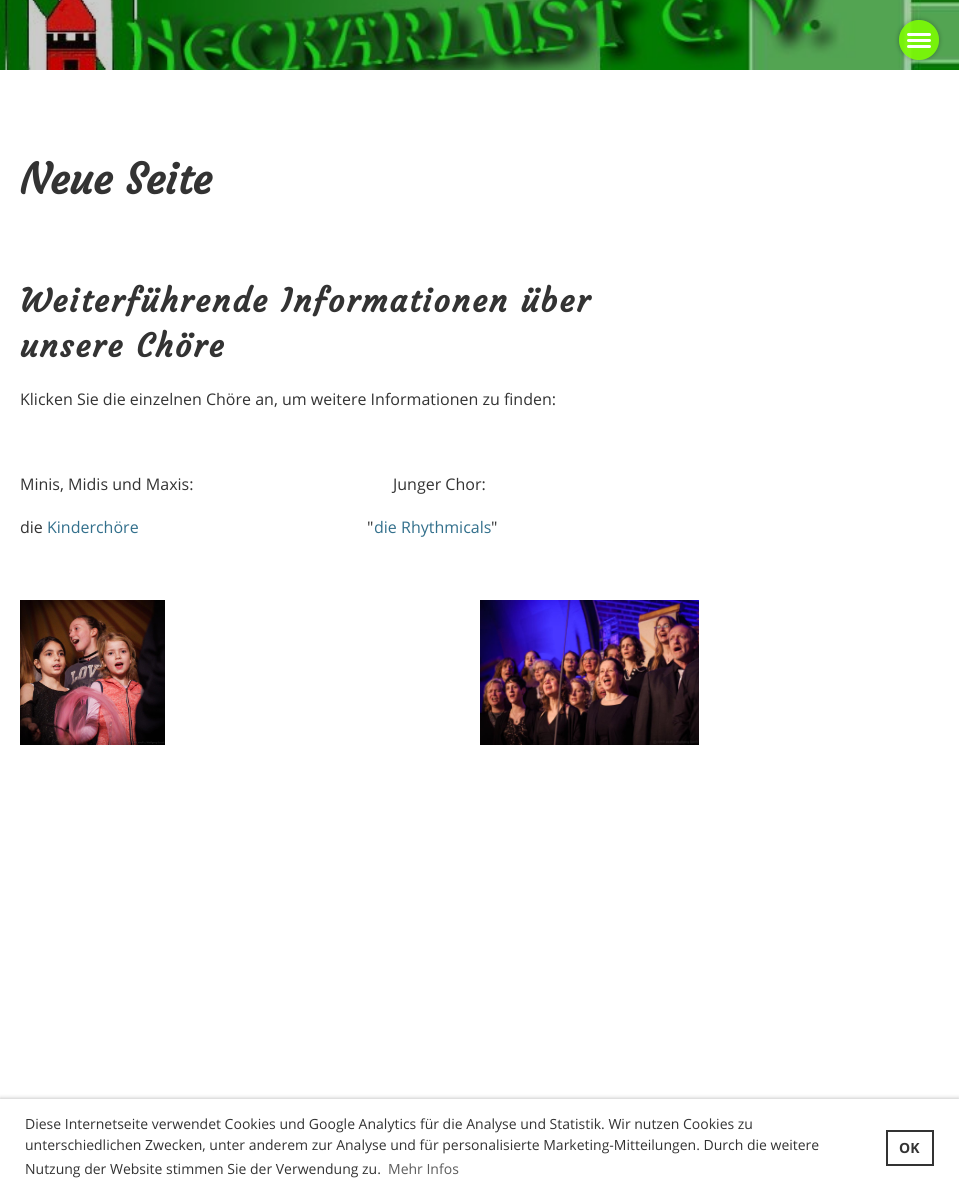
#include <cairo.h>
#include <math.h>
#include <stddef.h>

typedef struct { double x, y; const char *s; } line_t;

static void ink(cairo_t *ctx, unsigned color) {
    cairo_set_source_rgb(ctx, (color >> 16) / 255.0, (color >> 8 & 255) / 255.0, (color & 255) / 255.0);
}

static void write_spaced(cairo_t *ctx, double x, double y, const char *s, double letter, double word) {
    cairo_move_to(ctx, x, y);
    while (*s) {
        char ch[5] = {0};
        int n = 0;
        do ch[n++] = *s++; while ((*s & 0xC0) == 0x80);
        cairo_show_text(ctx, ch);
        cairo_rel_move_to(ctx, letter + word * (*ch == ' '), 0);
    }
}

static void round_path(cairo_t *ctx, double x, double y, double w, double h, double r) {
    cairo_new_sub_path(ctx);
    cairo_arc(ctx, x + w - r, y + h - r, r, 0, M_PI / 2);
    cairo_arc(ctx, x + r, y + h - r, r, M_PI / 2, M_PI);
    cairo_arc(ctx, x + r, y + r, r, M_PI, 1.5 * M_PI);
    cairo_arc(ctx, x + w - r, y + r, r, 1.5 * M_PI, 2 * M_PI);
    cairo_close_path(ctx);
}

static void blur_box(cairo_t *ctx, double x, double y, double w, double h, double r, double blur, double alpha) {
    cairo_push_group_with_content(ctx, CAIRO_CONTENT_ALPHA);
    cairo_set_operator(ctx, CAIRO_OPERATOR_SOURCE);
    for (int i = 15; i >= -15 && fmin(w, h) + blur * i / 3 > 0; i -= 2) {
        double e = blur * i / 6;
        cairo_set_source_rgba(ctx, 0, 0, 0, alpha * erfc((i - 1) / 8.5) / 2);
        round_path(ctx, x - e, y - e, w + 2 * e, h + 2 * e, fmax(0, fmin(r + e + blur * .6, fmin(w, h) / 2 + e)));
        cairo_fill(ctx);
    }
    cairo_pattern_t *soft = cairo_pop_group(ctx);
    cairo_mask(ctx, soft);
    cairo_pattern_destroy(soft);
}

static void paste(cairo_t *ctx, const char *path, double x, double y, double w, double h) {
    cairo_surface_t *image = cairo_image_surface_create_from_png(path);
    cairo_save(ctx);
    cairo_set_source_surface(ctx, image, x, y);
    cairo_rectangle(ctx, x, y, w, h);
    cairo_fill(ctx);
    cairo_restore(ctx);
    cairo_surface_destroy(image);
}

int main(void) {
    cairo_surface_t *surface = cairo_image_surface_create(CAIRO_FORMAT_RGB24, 959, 1196);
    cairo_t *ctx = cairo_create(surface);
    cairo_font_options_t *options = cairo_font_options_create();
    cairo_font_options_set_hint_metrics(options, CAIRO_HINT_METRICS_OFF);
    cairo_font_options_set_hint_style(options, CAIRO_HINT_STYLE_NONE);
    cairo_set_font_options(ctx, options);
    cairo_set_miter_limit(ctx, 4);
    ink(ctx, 0xFFFFFF);
    cairo_paint(ctx);
    paste(ctx, "media/1.png", 0, 0, 959, 70);
    cairo_save(ctx);
    cairo_set_fill_rule(ctx, CAIRO_FILL_RULE_EVEN_ODD);
    cairo_new_path(ctx);
    cairo_move_to(ctx, 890, 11);
    cairo_line_to(ctx, 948, 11);
    cairo_line_to(ctx, 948, 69);
    cairo_line_to(ctx, 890, 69);
    cairo_close_path(ctx);
    cairo_move_to(ctx, 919, 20);
    cairo_curve_to(ctx, 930, 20, 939, 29, 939, 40);
    cairo_curve_to(ctx, 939, 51, 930, 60, 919, 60);
    cairo_curve_to(ctx, 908, 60, 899, 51, 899, 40);
    cairo_curve_to(ctx, 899, 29, 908, 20, 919, 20);
    cairo_close_path(ctx);
    cairo_clip(ctx);
    ink(ctx, 0x000000);
    blur_box(ctx, 899, 20, 40, 40, 20, 2.5, 0.3);
    cairo_restore(ctx);
    cairo_set_source_rgba(ctx, 0.486, 0.984, 0.016, 0.9);
    cairo_arc(ctx, 919, 40, 20, 0, 2 * M_PI);
    cairo_fill(ctx);
    ink(ctx, 0xFFFFFF);
    round_path(ctx, 907, 33, 24, 3, 1.5);
    cairo_fill(ctx);
    round_path(ctx, 907, 39, 24, 3, 1.5);
    cairo_fill(ctx);
    round_path(ctx, 907, 45, 24, 3, 1.5);
    cairo_fill(ctx);
    cairo_select_font_face(ctx, "Courgette", CAIRO_FONT_SLANT_NORMAL, CAIRO_FONT_WEIGHT_BOLD);
    cairo_set_font_size(ctx, 42);
    ink(ctx, 0x333333);
    cairo_move_to(ctx, 20, 194);
    cairo_show_text(ctx, "Neue Seite");
    cairo_set_font_size(ctx, 32);
    write_spaced(ctx, 20, 312, "Weiterführende Informationen über", 2, 0);
    write_spaced(ctx, 20, 357, "unsere Chöre", 2, 0);
    cairo_select_font_face(ctx, "Open Sans", CAIRO_FONT_SLANT_NORMAL, CAIRO_FONT_WEIGHT_NORMAL);
    cairo_set_font_size(ctx, 16);
    {
        static const line_t items[] = {
            {20, 405, "Klicken Sie die einzelnen Chöre an, um weitere Informationen zu finden:"},
            {20, 490, "Minis, Midis und Maxis:                                                Junger Chor:"},
            {20, 533, "die"},
        };
        for (size_t i = 0; i < sizeof items / sizeof *items; i++) {
            cairo_move_to(ctx, items[i].x, items[i].y);
            cairo_show_text(ctx, items[i].s);
        }
    }
    ink(ctx, 0x33708C);
    cairo_move_to(ctx, 47, 533);
    cairo_show_text(ctx, "Kinderchöre");
    ink(ctx, 0x333333);
    cairo_move_to(ctx, 367, 533);
    cairo_show_text(ctx, "\"");
    ink(ctx, 0x33708C);
    cairo_move_to(ctx, 374, 533);
    cairo_show_text(ctx, "die Rhythmicals");
    ink(ctx, 0x333333);
    cairo_move_to(ctx, 491, 533);
    cairo_show_text(ctx, "\"");
    paste(ctx, "media/2.png", 20, 600, 145, 145);
    paste(ctx, "media/3.png", 480, 600, 219, 145);
    ink(ctx, 0x000000);
    blur_box(ctx, 0, 1099, 959, 97, 0, 2.5, 0.3);
    ink(ctx, 0xFFFFFF);
    cairo_rectangle(ctx, 0, 1099, 959, 97);
    cairo_fill(ctx);
    cairo_set_font_size(ctx, 14);
    ink(ctx, 0x333333);
    {
        static const line_t items[] = {
            {25, 1129, "Diese Internetseite verwendet Cookies und Google Analytics für die Analyse und Statistik. Wir nutzen Cookies zu"},
            {25, 1150, "unterschiedlichen Zwecken, unter anderem zur Analyse und für personalisierte Marketing-Mitteilungen. Durch die weitere"},
            {25, 1174, "Nutzung der Website stimmen Sie der Verwendung zu."},
        };
        for (size_t i = 0; i < sizeof items / sizeof *items; i++) {
            cairo_move_to(ctx, items[i].x, items[i].y);
            cairo_show_text(ctx, items[i].s);
        }
    }
    ink(ctx, 0x5C5C5C);
    cairo_move_to(ctx, 388, 1174);
    cairo_show_text(ctx, "Mehr Infos");
    cairo_rectangle(ctx, 887, 1131, 46, 34);
    ink(ctx, 0x333333);
    cairo_stroke(ctx);
    cairo_select_font_face(ctx, "Open Sans", CAIRO_FONT_SLANT_NORMAL, CAIRO_FONT_WEIGHT_BOLD);
    cairo_move_to(ctx, 899, 1153);
    cairo_show_text(ctx, "OK");
    cairo_surface_write_to_png(surface, "image.png");
    cairo_font_options_destroy(options);
    cairo_destroy(ctx);
    cairo_surface_destroy(surface);
    return 0;
}
